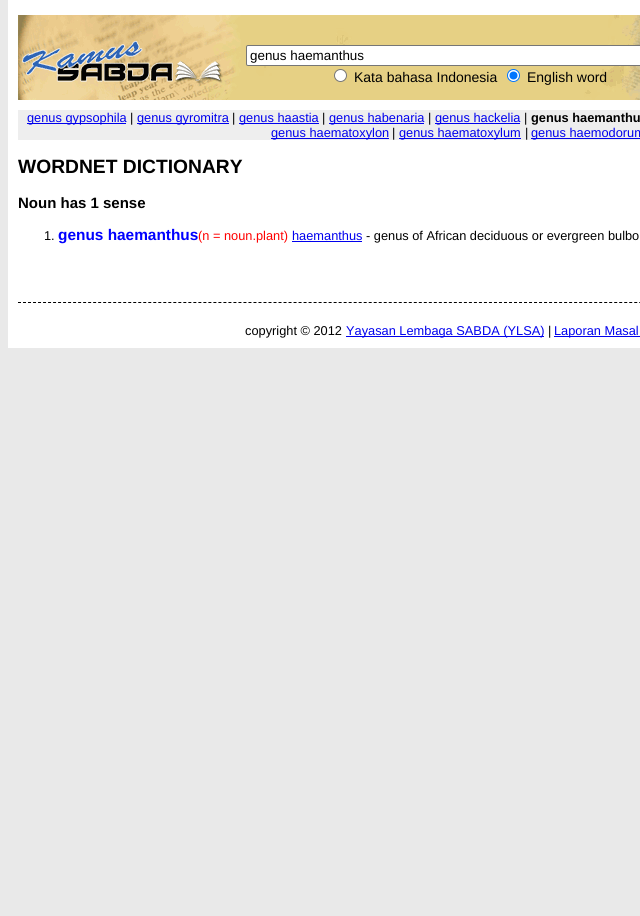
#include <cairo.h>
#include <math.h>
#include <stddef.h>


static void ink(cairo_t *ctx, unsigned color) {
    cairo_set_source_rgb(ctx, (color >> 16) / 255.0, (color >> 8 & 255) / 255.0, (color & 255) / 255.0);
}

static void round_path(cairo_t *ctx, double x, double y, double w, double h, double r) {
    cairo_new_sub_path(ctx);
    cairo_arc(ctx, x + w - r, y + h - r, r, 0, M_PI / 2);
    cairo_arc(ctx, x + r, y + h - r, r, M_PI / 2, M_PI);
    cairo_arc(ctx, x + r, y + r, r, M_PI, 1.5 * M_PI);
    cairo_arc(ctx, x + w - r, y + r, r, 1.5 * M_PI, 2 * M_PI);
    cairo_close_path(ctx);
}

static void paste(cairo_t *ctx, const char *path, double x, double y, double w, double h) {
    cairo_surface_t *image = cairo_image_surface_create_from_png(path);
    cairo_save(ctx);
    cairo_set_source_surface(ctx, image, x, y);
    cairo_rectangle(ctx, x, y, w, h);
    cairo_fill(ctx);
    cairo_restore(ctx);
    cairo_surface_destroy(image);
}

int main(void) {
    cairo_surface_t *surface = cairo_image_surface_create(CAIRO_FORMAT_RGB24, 640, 916);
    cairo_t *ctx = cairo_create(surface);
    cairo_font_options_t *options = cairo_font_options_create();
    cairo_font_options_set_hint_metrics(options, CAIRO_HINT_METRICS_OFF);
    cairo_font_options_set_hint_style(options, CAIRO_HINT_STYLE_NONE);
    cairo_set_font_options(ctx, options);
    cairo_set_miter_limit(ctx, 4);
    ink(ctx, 0xE9E9E9);
    cairo_paint(ctx);
    ink(ctx, 0xFFFFFF);
    cairo_rectangle(ctx, 8, 0, 632, 348);
    cairo_fill(ctx);
    paste(ctx, "media/1.png", 18, 15, 622, 85);
    round_path(ctx, 246.5, 45.5, 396, 20, 1.5);
    cairo_fill_preserve(ctx);
    ink(ctx, 0x767676);
    cairo_set_line_width(ctx, 1);
    cairo_stroke(ctx);
    cairo_select_font_face(ctx, "Liberation Sans", CAIRO_FONT_SLANT_NORMAL, CAIRO_FONT_WEIGHT_NORMAL);
    cairo_set_font_size(ctx, 13.4);
    ink(ctx, 0x000000);
    cairo_move_to(ctx, 250, 60);
    cairo_show_text(ctx, "genus haemanthus");
    ink(ctx, 0xFFFFFF);
    cairo_new_path(ctx);
    cairo_arc(ctx, 340.5, 75.5, 6, 0, 2 * M_PI);
    cairo_fill_preserve(ctx);
    ink(ctx, 0x767676);
    cairo_stroke(ctx);
    cairo_set_font_size(ctx, 14);
    ink(ctx, 0x000000);
    cairo_move_to(ctx, 354, 82);
    cairo_show_text(ctx, "Kata bahasa Indonesia");
    ink(ctx, 0xFFFFFF);
    cairo_new_path(ctx);
    cairo_arc(ctx, 513.5, 75.5, 6, 0, 2 * M_PI);
    cairo_fill_preserve(ctx);
    ink(ctx, 0x0075FF);
    cairo_stroke(ctx);
    cairo_arc(ctx, 513.5, 75.5, 4, 0, 2 * M_PI);
    cairo_fill(ctx);
    ink(ctx, 0x000000);
    cairo_move_to(ctx, 527, 82);
    cairo_show_text(ctx, "English word");
    ink(ctx, 0xEEEEEE);
    cairo_rectangle(ctx, 18, 110, 622, 30);
    cairo_fill(ctx);
    ink(ctx, 0x0000EE);
    cairo_rectangle(ctx, 27, 123, 99, 1);
    cairo_fill(ctx);
    cairo_set_font_size(ctx, 12.8);
    cairo_move_to(ctx, 27, 122);
    cairo_show_text(ctx, "genus gypsophila");
    ink(ctx, 0x000000);
    cairo_move_to(ctx, 130, 122);
    cairo_show_text(ctx, "|");
    ink(ctx, 0x0000EE);
    cairo_rectangle(ctx, 137, 123, 92, 1);
    cairo_fill(ctx);
    cairo_move_to(ctx, 137, 122);
    cairo_show_text(ctx, "genus gyromitra");
    ink(ctx, 0x000000);
    cairo_move_to(ctx, 232, 122);
    cairo_show_text(ctx, "|");
    ink(ctx, 0x0000EE);
    cairo_rectangle(ctx, 239, 123, 80, 1);
    cairo_fill(ctx);
    cairo_move_to(ctx, 239, 122);
    cairo_show_text(ctx, "genus haastia");
    ink(ctx, 0x000000);
    cairo_move_to(ctx, 322, 122);
    cairo_show_text(ctx, "|");
    ink(ctx, 0x0000EE);
    cairo_rectangle(ctx, 329, 123, 95, 1);
    cairo_fill(ctx);
    cairo_move_to(ctx, 329, 122);
    cairo_show_text(ctx, "genus habenaria");
    ink(ctx, 0x000000);
    cairo_move_to(ctx, 428, 122);
    cairo_show_text(ctx, "|");
    ink(ctx, 0x0000EE);
    cairo_rectangle(ctx, 435, 123, 85, 1);
    cairo_fill(ctx);
    cairo_move_to(ctx, 435, 122);
    cairo_show_text(ctx, "genus hackelia");
    ink(ctx, 0x000000);
    cairo_move_to(ctx, 524, 122);
    cairo_show_text(ctx, "|");
    cairo_select_font_face(ctx, "Liberation Sans", CAIRO_FONT_SLANT_NORMAL, CAIRO_FONT_WEIGHT_BOLD);
    cairo_move_to(ctx, 531, 122);
    cairo_show_text(ctx, "genus haemanthu");
    ink(ctx, 0x0000EE);
    cairo_rectangle(ctx, 271, 138, 118, 1);
    cairo_fill(ctx);
    cairo_select_font_face(ctx, "Liberation Sans", CAIRO_FONT_SLANT_NORMAL, CAIRO_FONT_WEIGHT_NORMAL);
    cairo_move_to(ctx, 271, 137);
    cairo_show_text(ctx, "genus haematoxylon");
    ink(ctx, 0x000000);
    cairo_move_to(ctx, 392, 137);
    cairo_show_text(ctx, "|");
    ink(ctx, 0x0000EE);
    cairo_rectangle(ctx, 399, 138, 122, 1);
    cairo_fill(ctx);
    cairo_move_to(ctx, 399, 137);
    cairo_show_text(ctx, "genus haematoxylum");
    ink(ctx, 0x000000);
    cairo_move_to(ctx, 525, 137);
    cairo_show_text(ctx, "|");
    ink(ctx, 0x0000EE);
    cairo_rectangle(ctx, 531, 138, 109, 1);
    cairo_fill(ctx);
    cairo_move_to(ctx, 531, 137);
    cairo_show_text(ctx, "genus haemodorum");
    cairo_new_path(ctx);
    cairo_move_to(ctx, 18, 302.5);
    cairo_line_to(ctx, 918, 302.5);
    ink(ctx, 0x000000);
    cairo_set_dash(ctx, (double[]){3, 2.01}, 2, 0);
    cairo_stroke(ctx);
    cairo_select_font_face(ctx, "Liberation Sans", CAIRO_FONT_SLANT_NORMAL, CAIRO_FONT_WEIGHT_BOLD);
    cairo_set_font_size(ctx, 19.25);
    cairo_move_to(ctx, 18, 173);
    cairo_show_text(ctx, "WORDNET DICTIONARY");
    cairo_set_font_size(ctx, 15);
    cairo_move_to(ctx, 18, 208);
    cairo_show_text(ctx, "Noun has 1 sense");
    cairo_select_font_face(ctx, "Liberation Sans", CAIRO_FONT_SLANT_NORMAL, CAIRO_FONT_WEIGHT_NORMAL);
    cairo_set_font_size(ctx, 12.8);
    cairo_move_to(ctx, 44, 240);
    cairo_show_text(ctx, "1.");
    cairo_select_font_face(ctx, "Liberation Sans", CAIRO_FONT_SLANT_NORMAL, CAIRO_FONT_WEIGHT_BOLD);
    cairo_set_font_size(ctx, 15.4);
    ink(ctx, 0x0000FF);
    cairo_move_to(ctx, 58, 240);
    cairo_show_text(ctx, "genus haemanthus");
    cairo_select_font_face(ctx, "Liberation Sans", CAIRO_FONT_SLANT_NORMAL, CAIRO_FONT_WEIGHT_NORMAL);
    cairo_set_font_size(ctx, 12.8);
    ink(ctx, 0xFF0000);
    cairo_move_to(ctx, 198, 240);
    cairo_show_text(ctx, "(n = noun.plant)");
    ink(ctx, 0x0000EE);
    cairo_move_to(ctx, 292, 240);
    cairo_show_text(ctx, "haemanthus");
    cairo_rectangle(ctx, 292, 241, 70, 1);
    cairo_fill(ctx);
    ink(ctx, 0x000000);
    cairo_move_to(ctx, 366, 240);
    cairo_show_text(ctx, "- genus of African deciduous or evergreen bulbo");
    cairo_move_to(ctx, 245, 335);
    cairo_show_text(ctx, "copyright © 2012");
    ink(ctx, 0x0000EE);
    cairo_rectangle(ctx, 346, 336, 198, 1);
    cairo_fill(ctx);
    cairo_move_to(ctx, 346, 335);
    cairo_show_text(ctx, "Yayasan Lembaga SABDA (YLSA)");
    ink(ctx, 0x000000);
    cairo_move_to(ctx, 548, 335);
    cairo_show_text(ctx, "|");
    ink(ctx, 0x0000EE);
    cairo_rectangle(ctx, 554, 336, 86, 1);
    cairo_fill(ctx);
    cairo_move_to(ctx, 554, 335);
    cairo_show_text(ctx, "Laporan Masal");
    cairo_surface_write_to_png(surface, "image.png");
    cairo_font_options_destroy(options);
    cairo_destroy(ctx);
    cairo_surface_destroy(surface);
    return 0;
}
